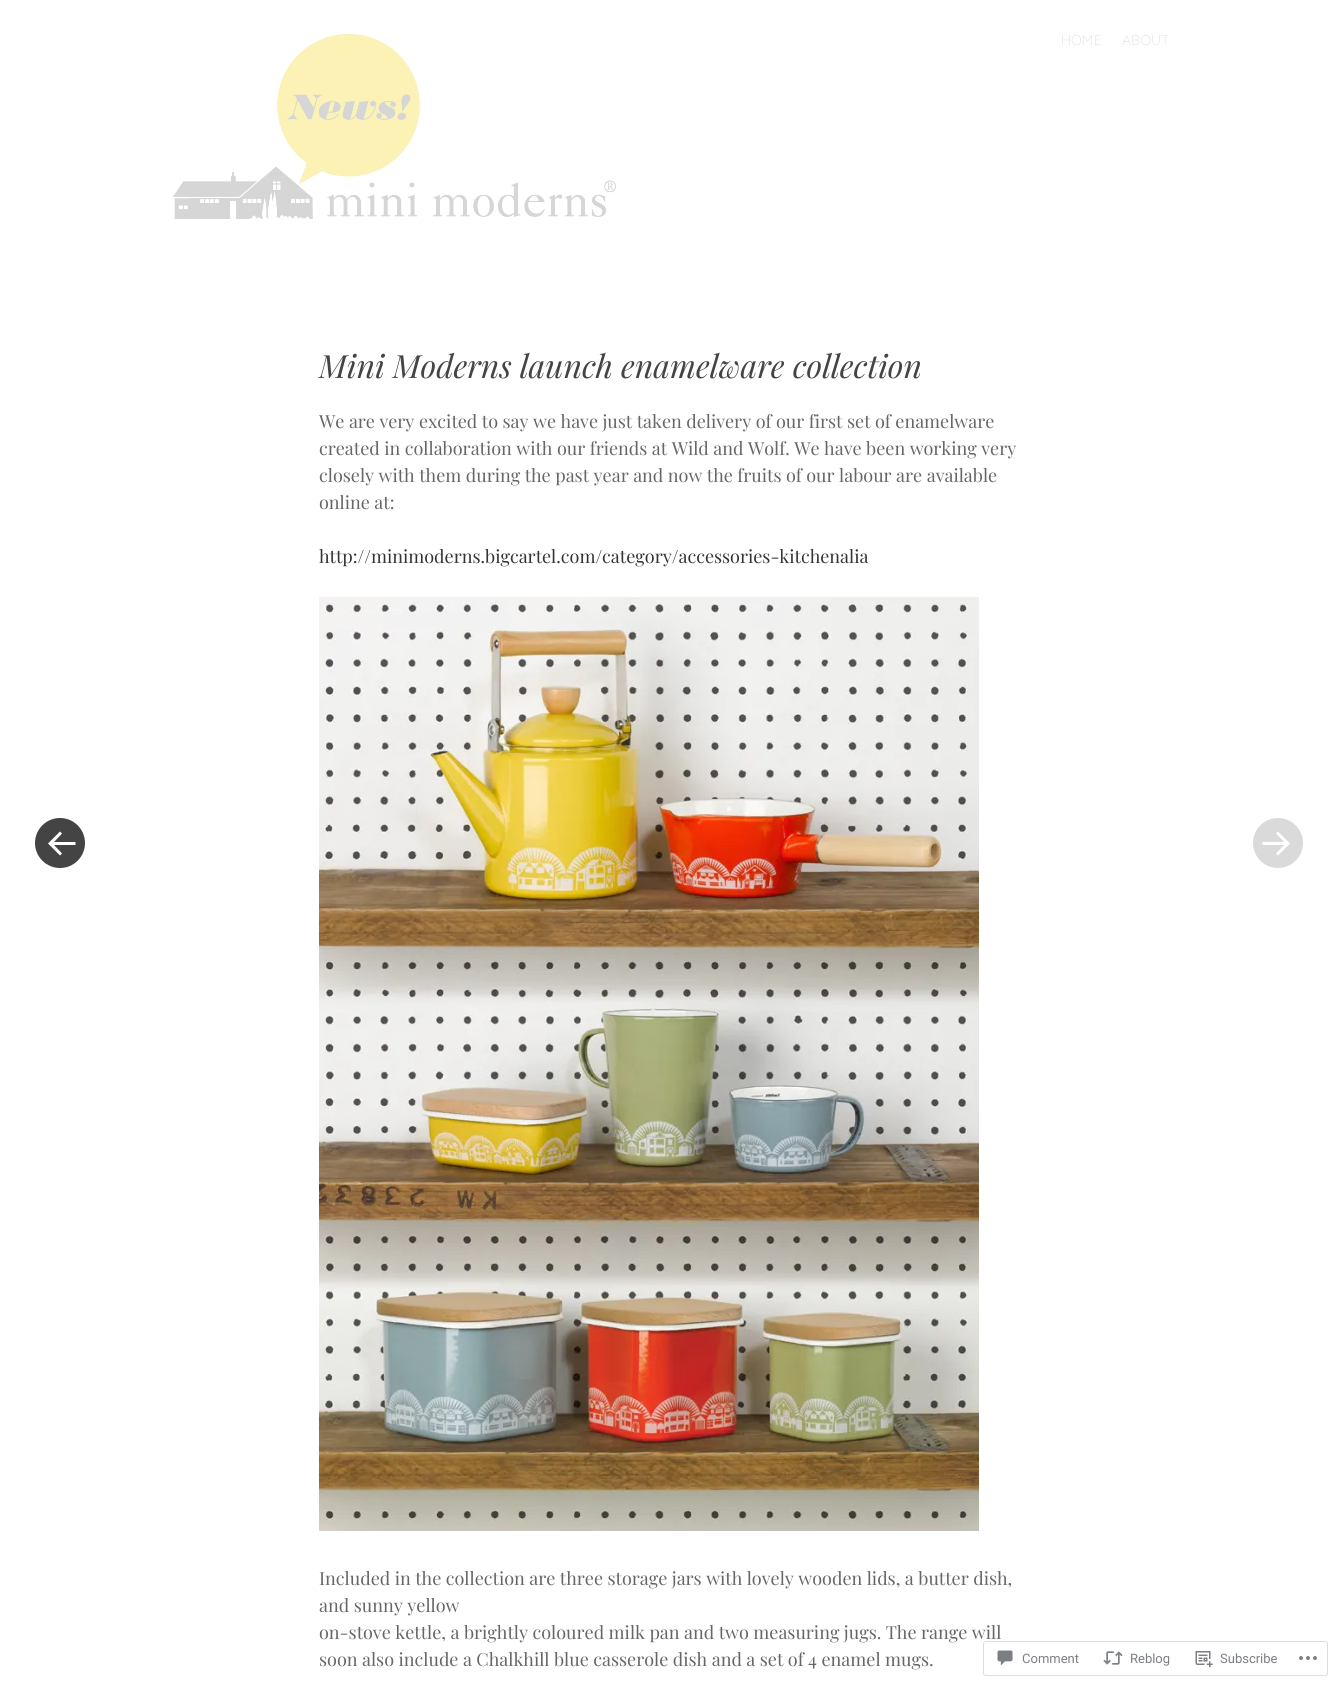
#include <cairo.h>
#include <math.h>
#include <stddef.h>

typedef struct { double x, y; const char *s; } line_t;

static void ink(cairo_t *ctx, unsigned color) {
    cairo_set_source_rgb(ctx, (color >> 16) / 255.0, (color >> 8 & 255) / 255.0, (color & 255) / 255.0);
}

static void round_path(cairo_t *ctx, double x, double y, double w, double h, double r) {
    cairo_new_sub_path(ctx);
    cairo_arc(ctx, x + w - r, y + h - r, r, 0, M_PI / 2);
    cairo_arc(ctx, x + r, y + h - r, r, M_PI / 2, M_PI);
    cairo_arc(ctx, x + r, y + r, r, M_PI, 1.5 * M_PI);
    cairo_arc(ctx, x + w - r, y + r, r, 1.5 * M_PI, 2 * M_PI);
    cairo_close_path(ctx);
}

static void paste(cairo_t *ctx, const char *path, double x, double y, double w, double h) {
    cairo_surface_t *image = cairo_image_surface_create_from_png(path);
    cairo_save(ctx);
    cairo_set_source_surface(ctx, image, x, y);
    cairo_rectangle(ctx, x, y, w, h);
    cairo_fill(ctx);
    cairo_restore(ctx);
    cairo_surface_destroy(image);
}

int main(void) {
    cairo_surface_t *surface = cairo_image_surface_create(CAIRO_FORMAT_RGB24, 1338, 1686);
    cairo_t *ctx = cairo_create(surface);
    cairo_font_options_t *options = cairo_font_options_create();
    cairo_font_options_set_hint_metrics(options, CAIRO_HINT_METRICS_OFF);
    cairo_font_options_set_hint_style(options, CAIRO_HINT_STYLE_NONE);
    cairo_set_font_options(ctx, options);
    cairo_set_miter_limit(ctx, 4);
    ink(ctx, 0xFFFFFF);
    cairo_paint(ctx);
    paste(ctx, "media/1.png", 173, 33, 443, 186);
    cairo_select_font_face(ctx, "Quicksand Light", CAIRO_FONT_SLANT_NORMAL, CAIRO_FONT_WEIGHT_NORMAL);
    cairo_set_font_size(ctx, 14);
    ink(ctx, 0xE0E0E0);
    cairo_move_to(ctx, 1061, 45);
    cairo_show_text(ctx, "HOME");
    cairo_move_to(ctx, 1122, 45);
    cairo_show_text(ctx, "ABOUT");
    cairo_select_font_face(ctx, "Playfair Display", CAIRO_FONT_SLANT_ITALIC, CAIRO_FONT_WEIGHT_NORMAL);
    cairo_set_font_size(ctx, 32);
    ink(ctx, 0x444444);
    cairo_move_to(ctx, 319, 378);
    cairo_show_text(ctx, "Mini Moderns launch enamelware collection");
    cairo_select_font_face(ctx, "Playfair Display", CAIRO_FONT_SLANT_NORMAL, CAIRO_FONT_WEIGHT_NORMAL);
    cairo_set_font_size(ctx, 18);
    ink(ctx, 0x666666);
    {
        static const line_t items[] = {
            {319, 428, "We are very excited to say we have just taken delivery of our first set of enamelware"},
            {319, 455, "created in collaboration with our friends at Wild and Wolf. We have been working very"},
            {319, 482, "closely with them during the past year and now the fruits of our labour are available"},
            {319, 509, "online at:"},
        };
        for (size_t i = 0; i < sizeof items / sizeof *items; i++) {
            cairo_move_to(ctx, items[i].x, items[i].y);
            cairo_show_text(ctx, items[i].s);
        }
    }
    ink(ctx, 0x333333);
    cairo_move_to(ctx, 319, 563);
    cairo_show_text(ctx, "http://minimoderns.bigcartel.com/category/accessories-kitchenalia");
    paste(ctx, "media/2.png", 319, 597, 660, 934);
    ink(ctx, 0x666666);
    {
        static const line_t items[] = {
            {319, 1585, "Included in the collection are three storage jars with lovely wooden lids, a butter dish,"},
            {319, 1612, "and sunny yellow"},
            {319, 1639, "on-stove kettle, a brightly coloured milk pan and two measuring jugs. The range will"},
            {319, 1666, "soon also include a Chalkhill blue casserole dish and a set of 4 enamel mugs."},
        };
        for (size_t i = 0; i < sizeof items / sizeof *items; i++) {
            cairo_move_to(ctx, items[i].x, items[i].y);
            cairo_show_text(ctx, items[i].s);
        }
    }
    ink(ctx, 0x444444);
    cairo_new_path(ctx);
    cairo_arc(ctx, 60, 843, 25, 0, 2 * M_PI);
    cairo_fill(ctx);
    ink(ctx, 0xFFFFFF);
    cairo_new_path(ctx);
    cairo_move_to(ctx, 48, 843.5);
    cairo_line_to(ctx, 60, 855.5);
    cairo_line_to(ctx, 62, 853.5);
    cairo_line_to(ctx, 54, 845);
    cairo_line_to(ctx, 75.5, 845);
    cairo_line_to(ctx, 75.5, 842);
    cairo_line_to(ctx, 54, 842);
    cairo_line_to(ctx, 62, 833.5);
    cairo_line_to(ctx, 60, 831.5);
    cairo_close_path(ctx);
    cairo_fill(ctx);
    ink(ctx, 0xDADADA);
    cairo_arc(ctx, 1278, 843, 25, 0, 2 * M_PI);
    cairo_fill(ctx);
    ink(ctx, 0xFFFFFF);
    cairo_new_path(ctx);
    cairo_move_to(ctx, 1290, 843.5);
    cairo_line_to(ctx, 1278, 855.5);
    cairo_line_to(ctx, 1276, 853.5);
    cairo_line_to(ctx, 1284, 845);
    cairo_line_to(ctx, 1262.5, 845);
    cairo_line_to(ctx, 1262.5, 842);
    cairo_line_to(ctx, 1284, 842);
    cairo_line_to(ctx, 1276, 833.5);
    cairo_line_to(ctx, 1278, 831.5);
    cairo_close_path(ctx);
    cairo_fill(ctx);
    round_path(ctx, 983.5, 1641.5, 344, 34, 2.5);
    ink(ctx, 0xDDDDDF);
    cairo_set_line_width(ctx, 1);
    cairo_stroke(ctx);
    paste(ctx, "media/3.png", 997, 1650, 16, 16);
    cairo_select_font_face(ctx, "Roboto", CAIRO_FONT_SLANT_NORMAL, CAIRO_FONT_WEIGHT_NORMAL);
    cairo_set_font_size(ctx, 13);
    ink(ctx, 0x7B7F85);
    cairo_move_to(ctx, 1022, 1663);
    cairo_show_text(ctx, "Comment");
    paste(ctx, "media/4.png", 1103, 1651, 20, 14);
    cairo_move_to(ctx, 1130, 1663);
    cairo_show_text(ctx, "Reblog");
    paste(ctx, "media/5.png", 1195, 1651, 18, 17);
    cairo_move_to(ctx, 1220, 1663);
    cairo_show_text(ctx, "Subscribe");
    paste(ctx, "media/6.png", 1299, 1656, 18, 4);
    cairo_surface_write_to_png(surface, "image.png");
    cairo_font_options_destroy(options);
    cairo_destroy(ctx);
    cairo_surface_destroy(surface);
    return 0;
}
